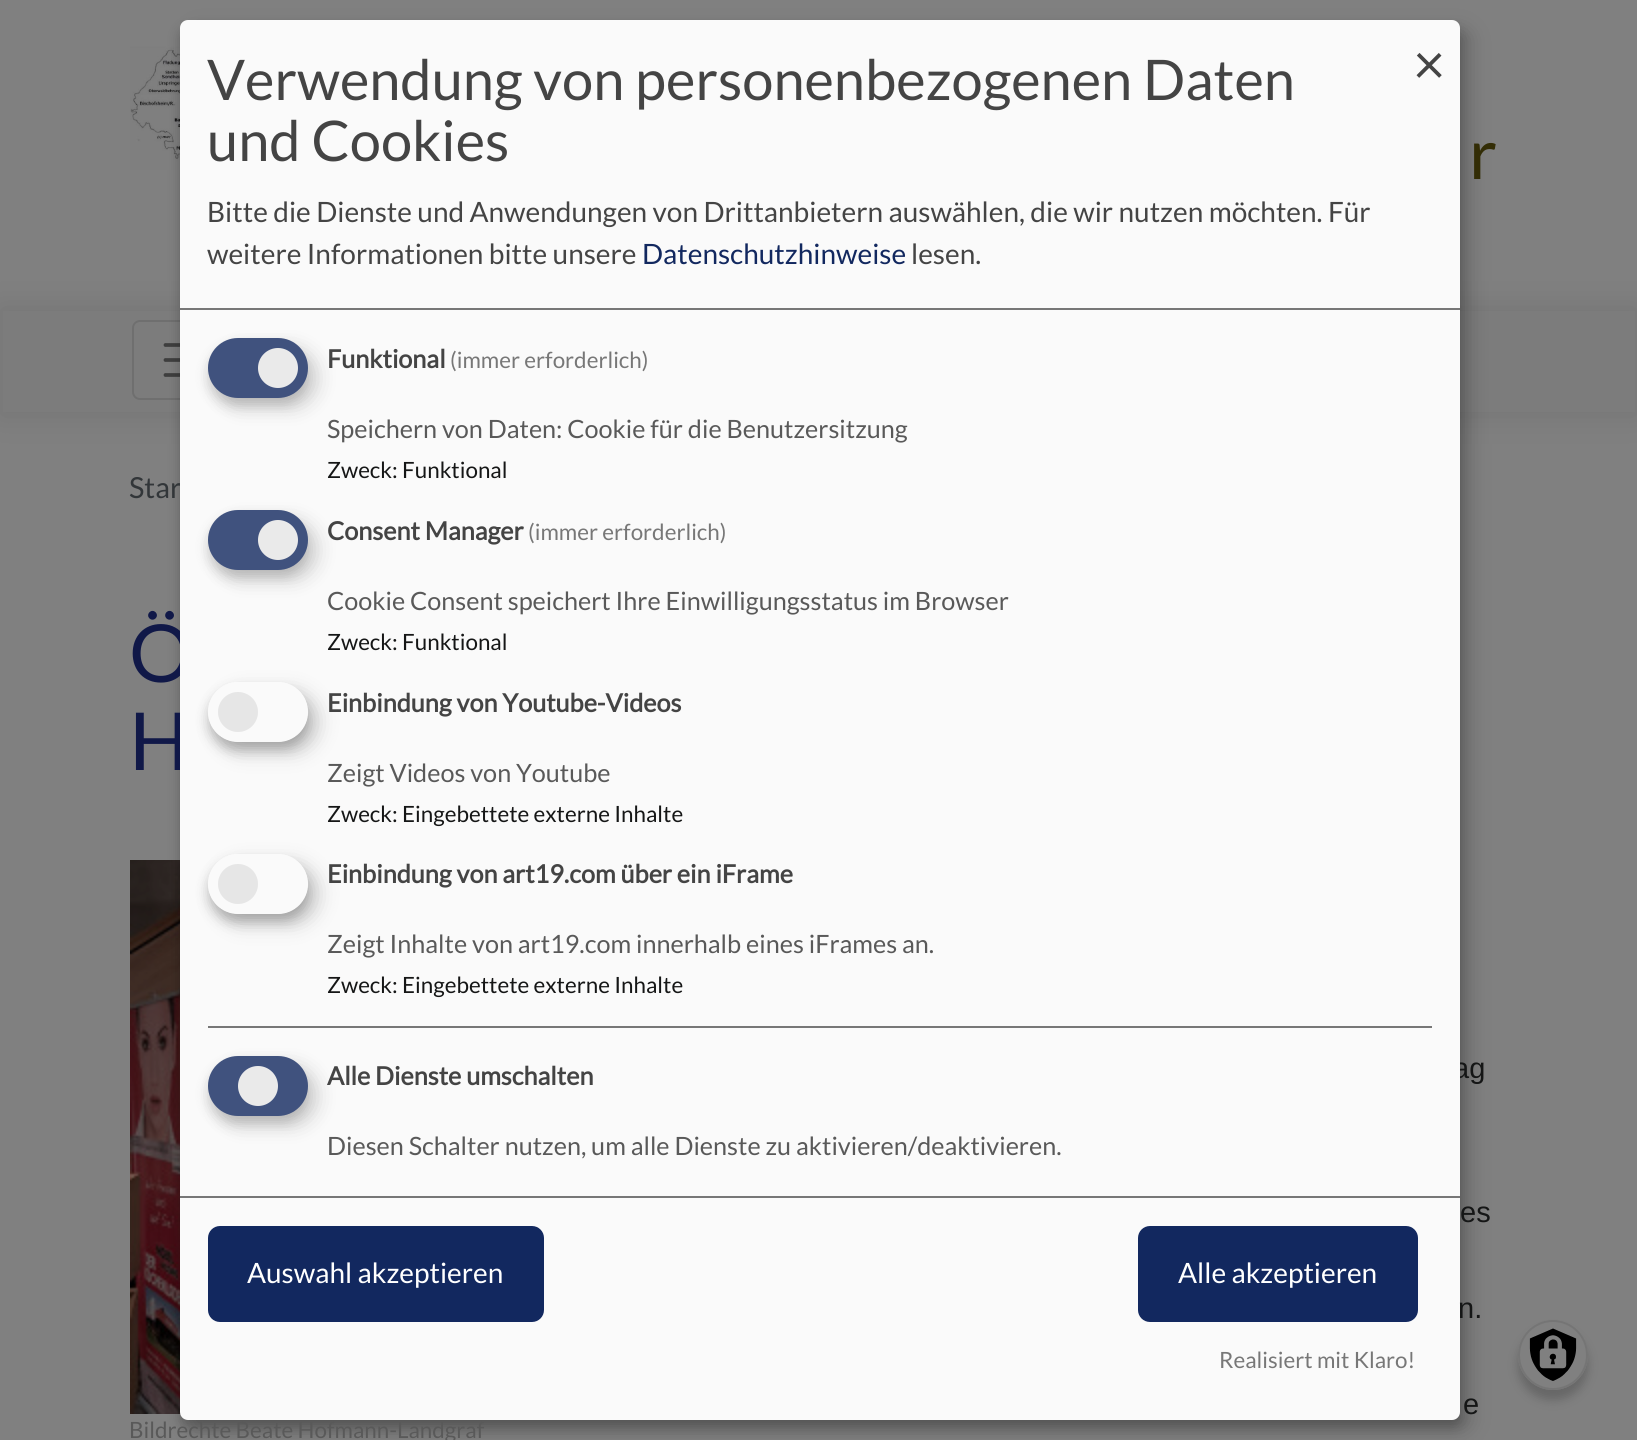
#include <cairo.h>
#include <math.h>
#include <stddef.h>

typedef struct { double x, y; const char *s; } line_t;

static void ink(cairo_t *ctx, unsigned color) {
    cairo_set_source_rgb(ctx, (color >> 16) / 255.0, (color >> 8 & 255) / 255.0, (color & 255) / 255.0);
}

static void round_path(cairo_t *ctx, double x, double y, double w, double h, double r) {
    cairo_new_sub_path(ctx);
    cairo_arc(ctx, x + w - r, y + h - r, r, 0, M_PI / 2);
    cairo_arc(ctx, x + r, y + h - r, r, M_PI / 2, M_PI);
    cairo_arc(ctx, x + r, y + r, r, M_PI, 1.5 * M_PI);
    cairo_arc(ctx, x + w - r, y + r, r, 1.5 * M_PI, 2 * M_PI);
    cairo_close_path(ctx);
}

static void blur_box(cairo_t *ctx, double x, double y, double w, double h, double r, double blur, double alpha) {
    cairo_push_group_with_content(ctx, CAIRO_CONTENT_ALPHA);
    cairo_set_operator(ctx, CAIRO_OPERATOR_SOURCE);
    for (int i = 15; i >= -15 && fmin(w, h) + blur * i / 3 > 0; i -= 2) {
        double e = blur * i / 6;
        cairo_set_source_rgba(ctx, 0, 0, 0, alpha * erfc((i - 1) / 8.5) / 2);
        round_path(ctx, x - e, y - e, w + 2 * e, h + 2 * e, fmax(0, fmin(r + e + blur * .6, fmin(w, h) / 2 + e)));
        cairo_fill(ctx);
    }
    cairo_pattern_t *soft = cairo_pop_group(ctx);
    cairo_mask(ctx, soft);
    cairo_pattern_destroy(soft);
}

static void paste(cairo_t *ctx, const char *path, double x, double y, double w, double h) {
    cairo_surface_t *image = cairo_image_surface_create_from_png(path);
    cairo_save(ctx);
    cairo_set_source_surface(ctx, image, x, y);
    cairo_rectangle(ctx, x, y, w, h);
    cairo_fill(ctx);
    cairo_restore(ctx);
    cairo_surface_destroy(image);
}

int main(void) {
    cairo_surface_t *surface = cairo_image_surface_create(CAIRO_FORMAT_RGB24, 1637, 1440);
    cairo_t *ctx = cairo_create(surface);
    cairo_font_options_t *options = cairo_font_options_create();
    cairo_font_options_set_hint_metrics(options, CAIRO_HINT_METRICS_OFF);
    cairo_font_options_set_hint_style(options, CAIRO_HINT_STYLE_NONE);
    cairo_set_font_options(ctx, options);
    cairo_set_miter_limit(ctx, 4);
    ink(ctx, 0x808080);
    cairo_paint(ctx);
    paste(ctx, "media/1.png", 130, 20, 58, 154);
    ink(ctx, 0x000000);
    blur_box(ctx, 0, 308, 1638, 108, 0, 15, 0.09);
    ink(ctx, 0x7C7C7C);
    cairo_rectangle(ctx, 3, 311, 1632, 101);
    cairo_fill(ctx);
    round_path(ctx, 133, 321, 110, 78, 7);
    ink(ctx, 0x6F6F6F);
    cairo_stroke(ctx);
    cairo_new_path(ctx);
    cairo_move_to(ctx, 165.5, 345);
    cairo_line_to(ctx, 210.5, 345);
    cairo_move_to(ctx, 165.5, 360);
    cairo_line_to(ctx, 210.5, 360);
    cairo_move_to(ctx, 165.5, 375);
    cairo_line_to(ctx, 210.5, 375);
    ink(ctx, 0x3E3E3E);
    cairo_set_line_width(ctx, 3.8);
    cairo_set_line_cap(ctx, CAIRO_LINE_CAP_ROUND);
    cairo_stroke(ctx);
    paste(ctx, "media/2.png", 130, 860, 51, 554);
    ink(ctx, 0x000000);
    blur_box(ctx, 190, 30, 1280, 1400, 8, 10, 0.19);
    blur_box(ctx, 180, 28, 1280, 1400, 8, 6, 0.2);
    cairo_select_font_face(ctx, "Lato", CAIRO_FONT_SLANT_NORMAL, CAIRO_FONT_WEIGHT_NORMAL);
    cairo_set_font_size(ctx, 29);
    ink(ctx, 0x323639);
    cairo_move_to(ctx, 129, 498);
    cairo_show_text(ctx, "Star");
    cairo_set_font_size(ctx, 80);
    ink(ctx, 0x101848);
    cairo_move_to(ctx, 129, 682);
    cairo_show_text(ctx, "Ö");
    cairo_move_to(ctx, 129, 770);
    cairo_show_text(ctx, "H");
    cairo_select_font_face(ctx, "Liberation Sans", CAIRO_FONT_SLANT_NORMAL, CAIRO_FONT_WEIGHT_NORMAL);
    cairo_set_font_size(ctx, 29);
    ink(ctx, 0x151616);
    cairo_move_to(ctx, 1453, 1078);
    cairo_show_text(ctx, "ag");
    ink(ctx, 0xFAFAFA);
    round_path(ctx, 180, 20, 1280, 1400, 8);
    cairo_fill(ctx);
    ink(ctx, 0x777777);
    cairo_rectangle(ctx, 180, 308, 1280, 2);
    cairo_fill(ctx);
    cairo_select_font_face(ctx, "Lato", CAIRO_FONT_SLANT_NORMAL, CAIRO_FONT_WEIGHT_NORMAL);
    cairo_set_font_size(ctx, 56);
    ink(ctx, 0x444444);
    cairo_move_to(ctx, 207, 100);
    cairo_show_text(ctx, "Verwendung von personenbezogenen Daten");
    cairo_move_to(ctx, 207, 161);
    cairo_show_text(ctx, "und Cookies");
    cairo_set_font_size(ctx, 28);
    cairo_move_to(ctx, 207, 222);
    cairo_show_text(ctx, "Bitte die Dienste und Anwendungen von Drittanbietern auswählen, die wir nutzen möchten. Für");
    cairo_move_to(ctx, 207, 264);
    cairo_show_text(ctx, "weitere Informationen bitte unsere");
    ink(ctx, 0x12285F);
    cairo_move_to(ctx, 642, 264);
    cairo_show_text(ctx, "Datenschutzhinweise");
    ink(ctx, 0x444444);
    cairo_move_to(ctx, 911, 264);
    cairo_show_text(ctx, "lesen.");
    cairo_set_font_size(ctx, 56);
    cairo_move_to(ctx, 1413, 84);
    cairo_show_text(ctx, "×");
    ink(ctx, 0x000000);
    blur_box(ctx, 218, 348, 100, 60, 30, 10, 0.15);
    ink(ctx, 0x323232);
    blur_box(ctx, 208, 346, 100, 60, 30, 6, 0.2);
    ink(ctx, 0x40527E);
    round_path(ctx, 208, 338, 100, 60, 30);
    cairo_fill(ctx);
    ink(ctx, 0xEAEAEA);
    cairo_arc(ctx, 278, 368, 20, 0, 2 * M_PI);
    cairo_fill(ctx);
    cairo_select_font_face(ctx, "Lato", CAIRO_FONT_SLANT_NORMAL, CAIRO_FONT_WEIGHT_BOLD);
    cairo_set_font_size(ctx, 25.2);
    ink(ctx, 0x444444);
    cairo_move_to(ctx, 327, 368);
    cairo_show_text(ctx, "Funktional");
    cairo_select_font_face(ctx, "Lato", CAIRO_FONT_SLANT_NORMAL, CAIRO_FONT_WEIGHT_NORMAL);
    cairo_set_font_size(ctx, 22.4);
    ink(ctx, 0x777777);
    cairo_move_to(ctx, 450, 368);
    cairo_show_text(ctx, "(immer erforderlich)");
    cairo_set_font_size(ctx, 25.2);
    ink(ctx, 0x595959);
    cairo_move_to(ctx, 327, 438);
    cairo_show_text(ctx, "Speichern von Daten: Cookie für die Benutzersitzung");
    cairo_set_font_size(ctx, 22.4);
    ink(ctx, 0x151616);
    cairo_move_to(ctx, 327, 478);
    cairo_show_text(ctx, "Zweck: Funktional");
    ink(ctx, 0x000000);
    blur_box(ctx, 218, 520, 100, 60, 30, 10, 0.15);
    ink(ctx, 0x323232);
    blur_box(ctx, 208, 518, 100, 60, 30, 6, 0.2);
    ink(ctx, 0x40527E);
    round_path(ctx, 208, 510, 100, 60, 30);
    cairo_fill(ctx);
    ink(ctx, 0xEAEAEA);
    cairo_arc(ctx, 278, 540, 20, 0, 2 * M_PI);
    cairo_fill(ctx);
    cairo_select_font_face(ctx, "Lato", CAIRO_FONT_SLANT_NORMAL, CAIRO_FONT_WEIGHT_BOLD);
    cairo_set_font_size(ctx, 25.2);
    ink(ctx, 0x444444);
    cairo_move_to(ctx, 327, 540);
    cairo_show_text(ctx, "Consent Manager");
    cairo_select_font_face(ctx, "Lato", CAIRO_FONT_SLANT_NORMAL, CAIRO_FONT_WEIGHT_NORMAL);
    cairo_set_font_size(ctx, 22.4);
    ink(ctx, 0x777777);
    cairo_move_to(ctx, 528, 540);
    cairo_show_text(ctx, "(immer erforderlich)");
    cairo_set_font_size(ctx, 25.2);
    ink(ctx, 0x595959);
    cairo_move_to(ctx, 327, 610);
    cairo_show_text(ctx, "Cookie Consent speichert Ihre Einwilligungsstatus im Browser");
    cairo_set_font_size(ctx, 22.4);
    ink(ctx, 0x151616);
    cairo_move_to(ctx, 327, 650);
    cairo_show_text(ctx, "Zweck: Funktional");
    cairo_save(ctx);
    cairo_set_fill_rule(ctx, CAIRO_FILL_RULE_EVEN_ODD);
    cairo_new_path(ctx);
    cairo_move_to(ctx, 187, 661);
    cairo_line_to(ctx, 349, 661);
    cairo_line_to(ctx, 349, 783);
    cairo_line_to(ctx, 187, 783);
    cairo_close_path(ctx);
    cairo_move_to(ctx, 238, 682);
    cairo_line_to(ctx, 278, 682);
    cairo_curve_to(ctx, 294.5, 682, 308, 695.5, 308, 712);
    cairo_curve_to(ctx, 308, 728.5, 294.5, 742, 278, 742);
    cairo_line_to(ctx, 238, 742);
    cairo_curve_to(ctx, 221.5, 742, 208, 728.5, 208, 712);
    cairo_curve_to(ctx, 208, 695.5, 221.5, 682, 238, 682);
    cairo_close_path(ctx);
    cairo_clip(ctx);
    ink(ctx, 0x000000);
    blur_box(ctx, 218, 692, 100, 60, 30, 10, 0.19);
    cairo_restore(ctx);
    cairo_save(ctx);
    cairo_set_fill_rule(ctx, CAIRO_FILL_RULE_EVEN_ODD);
    cairo_new_path(ctx);
    cairo_move_to(ctx, 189, 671);
    cairo_line_to(ctx, 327, 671);
    cairo_line_to(ctx, 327, 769);
    cairo_line_to(ctx, 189, 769);
    cairo_close_path(ctx);
    cairo_move_to(ctx, 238, 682);
    cairo_line_to(ctx, 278, 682);
    cairo_curve_to(ctx, 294.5, 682, 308, 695.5, 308, 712);
    cairo_curve_to(ctx, 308, 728.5, 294.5, 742, 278, 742);
    cairo_line_to(ctx, 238, 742);
    cairo_curve_to(ctx, 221.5, 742, 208, 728.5, 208, 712);
    cairo_curve_to(ctx, 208, 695.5, 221.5, 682, 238, 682);
    cairo_close_path(ctx);
    cairo_clip(ctx);
    ink(ctx, 0x000000);
    blur_box(ctx, 208, 690, 100, 60, 30, 6, 0.2);
    cairo_restore(ctx);
    ink(ctx, 0xE6E6E6);
    cairo_arc(ctx, 238, 712, 20, 0, 2 * M_PI);
    cairo_fill(ctx);
    cairo_select_font_face(ctx, "Lato", CAIRO_FONT_SLANT_NORMAL, CAIRO_FONT_WEIGHT_BOLD);
    cairo_set_font_size(ctx, 25.2);
    ink(ctx, 0x444444);
    cairo_move_to(ctx, 327, 712);
    cairo_show_text(ctx, "Einbindung von Youtube-Videos");
    cairo_select_font_face(ctx, "Lato", CAIRO_FONT_SLANT_NORMAL, CAIRO_FONT_WEIGHT_NORMAL);
    ink(ctx, 0x595959);
    cairo_move_to(ctx, 327, 782);
    cairo_show_text(ctx, "Zeigt Videos von Youtube");
    cairo_set_font_size(ctx, 22.4);
    ink(ctx, 0x151616);
    cairo_move_to(ctx, 327, 822);
    cairo_show_text(ctx, "Zweck: Eingebettete externe Inhalte");
    cairo_save(ctx);
    cairo_set_fill_rule(ctx, CAIRO_FILL_RULE_EVEN_ODD);
    cairo_new_path(ctx);
    cairo_move_to(ctx, 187, 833);
    cairo_line_to(ctx, 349, 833);
    cairo_line_to(ctx, 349, 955);
    cairo_line_to(ctx, 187, 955);
    cairo_close_path(ctx);
    cairo_move_to(ctx, 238, 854);
    cairo_line_to(ctx, 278, 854);
    cairo_curve_to(ctx, 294.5, 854, 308, 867.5, 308, 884);
    cairo_curve_to(ctx, 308, 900.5, 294.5, 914, 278, 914);
    cairo_line_to(ctx, 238, 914);
    cairo_curve_to(ctx, 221.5, 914, 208, 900.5, 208, 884);
    cairo_curve_to(ctx, 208, 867.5, 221.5, 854, 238, 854);
    cairo_close_path(ctx);
    cairo_clip(ctx);
    ink(ctx, 0x000000);
    blur_box(ctx, 218, 864, 100, 60, 30, 10, 0.19);
    cairo_restore(ctx);
    cairo_save(ctx);
    cairo_set_fill_rule(ctx, CAIRO_FILL_RULE_EVEN_ODD);
    cairo_new_path(ctx);
    cairo_move_to(ctx, 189, 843);
    cairo_line_to(ctx, 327, 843);
    cairo_line_to(ctx, 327, 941);
    cairo_line_to(ctx, 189, 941);
    cairo_close_path(ctx);
    cairo_move_to(ctx, 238, 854);
    cairo_line_to(ctx, 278, 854);
    cairo_curve_to(ctx, 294.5, 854, 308, 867.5, 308, 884);
    cairo_curve_to(ctx, 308, 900.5, 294.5, 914, 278, 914);
    cairo_line_to(ctx, 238, 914);
    cairo_curve_to(ctx, 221.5, 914, 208, 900.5, 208, 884);
    cairo_curve_to(ctx, 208, 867.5, 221.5, 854, 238, 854);
    cairo_close_path(ctx);
    cairo_clip(ctx);
    ink(ctx, 0x000000);
    blur_box(ctx, 208, 862, 100, 60, 30, 6, 0.2);
    cairo_restore(ctx);
    ink(ctx, 0xE6E6E6);
    cairo_arc(ctx, 238, 884, 20, 0, 2 * M_PI);
    cairo_fill(ctx);
    cairo_select_font_face(ctx, "Lato", CAIRO_FONT_SLANT_NORMAL, CAIRO_FONT_WEIGHT_BOLD);
    cairo_set_font_size(ctx, 25.2);
    ink(ctx, 0x444444);
    cairo_move_to(ctx, 327, 883);
    cairo_show_text(ctx, "Einbindung von art19.com über ein iFrame");
    cairo_select_font_face(ctx, "Lato", CAIRO_FONT_SLANT_NORMAL, CAIRO_FONT_WEIGHT_NORMAL);
    ink(ctx, 0x595959);
    cairo_move_to(ctx, 327, 953);
    cairo_show_text(ctx, "Zeigt Inhalte von art19.com innerhalb eines iFrames an.");
    cairo_set_font_size(ctx, 22.4);
    ink(ctx, 0x151616);
    cairo_move_to(ctx, 327, 993);
    cairo_show_text(ctx, "Zweck: Eingebettete externe Inhalte");
    ink(ctx, 0x777777);
    cairo_rectangle(ctx, 208, 1026, 1224, 2);
    cairo_fill(ctx);
    ink(ctx, 0x000000);
    blur_box(ctx, 218, 1066, 100, 60, 30, 10, 0.15);
    ink(ctx, 0x323232);
    blur_box(ctx, 208, 1064, 100, 60, 30, 6, 0.2);
    ink(ctx, 0x40527E);
    round_path(ctx, 208, 1056, 100, 60, 30);
    cairo_fill(ctx);
    ink(ctx, 0xEAEAEA);
    cairo_arc(ctx, 258, 1086, 20, 0, 2 * M_PI);
    cairo_fill(ctx);
    cairo_select_font_face(ctx, "Lato", CAIRO_FONT_SLANT_NORMAL, CAIRO_FONT_WEIGHT_BOLD);
    cairo_set_font_size(ctx, 25.2);
    ink(ctx, 0x444444);
    cairo_move_to(ctx, 327, 1085);
    cairo_show_text(ctx, "Alle Dienste umschalten");
    cairo_select_font_face(ctx, "Lato", CAIRO_FONT_SLANT_NORMAL, CAIRO_FONT_WEIGHT_NORMAL);
    ink(ctx, 0x595959);
    cairo_move_to(ctx, 327, 1155);
    cairo_show_text(ctx, "Diesen Schalter nutzen, um alle Dienste zu aktivieren/deaktivieren.");
    ink(ctx, 0x777777);
    cairo_rectangle(ctx, 180, 1196, 1280, 2);
    cairo_fill(ctx);
    ink(ctx, 0x12285F);
    round_path(ctx, 211, 1229, 330, 90, 9);
    cairo_fill_preserve(ctx);
    cairo_set_line_width(ctx, 6);
    cairo_set_line_cap(ctx, CAIRO_LINE_CAP_BUTT);
    cairo_stroke(ctx);
    cairo_set_font_size(ctx, 28);
    ink(ctx, 0xFFFFFF);
    cairo_move_to(ctx, 247, 1283);
    cairo_show_text(ctx, "Auswahl akzeptieren");
    ink(ctx, 0x12285F);
    round_path(ctx, 1141, 1229, 274, 90, 9);
    cairo_fill_preserve(ctx);
    cairo_stroke(ctx);
    ink(ctx, 0xFFFFFF);
    cairo_move_to(ctx, 1178, 1283);
    cairo_show_text(ctx, "Alle akzeptieren");
    cairo_set_font_size(ctx, 22.4);
    ink(ctx, 0x777777);
    cairo_move_to(ctx, 1219, 1368);
    cairo_show_text(ctx, "Realisiert mit Klaro!");
    cairo_set_font_size(ctx, 70);
    ink(ctx, 0x332D06);
    cairo_move_to(ctx, 1469, 179);
    cairo_show_text(ctx, "r");
    cairo_select_font_face(ctx, "Liberation Sans", CAIRO_FONT_SLANT_NORMAL, CAIRO_FONT_WEIGHT_NORMAL);
    cairo_set_font_size(ctx, 29);
    ink(ctx, 0x151616);
    {
        static const line_t items[] = {
            {1460, 1222, "es"},
            {1458, 1318, "n."},
            {1463, 1414, "e"},
        };
        for (size_t i = 0; i < sizeof items / sizeof *items; i++) {
            cairo_move_to(ctx, items[i].x, items[i].y);
            cairo_show_text(ctx, items[i].s);
        }
    }
    cairo_select_font_face(ctx, "Lato", CAIRO_FONT_SLANT_NORMAL, CAIRO_FONT_WEIGHT_NORMAL);
    cairo_set_font_size(ctx, 22.4);
    ink(ctx, 0x595959);
    cairo_move_to(ctx, 129, 1438);
    cairo_show_text(ctx, "Bildrechte Beate Hofmann-Landgraf");
    ink(ctx, 0x000000);
    blur_box(ctx, 1518, 1330, 70, 70, 35, 5, 0.2);
    ink(ctx, 0x808080);
    cairo_arc(ctx, 1553, 1355, 35, 0, 2 * M_PI);
    cairo_fill(ctx);
    paste(ctx, "media/3.png", 1529, 1328, 48, 53);
    cairo_arc(ctx, 1553, 1355, 34, 0, 2 * M_PI);
    ink(ctx, 0x757575);
    cairo_set_line_width(ctx, 2);
    cairo_stroke(ctx);
    cairo_surface_write_to_png(surface, "image.png");
    cairo_font_options_destroy(options);
    cairo_destroy(ctx);
    cairo_surface_destroy(surface);
    return 0;
}
